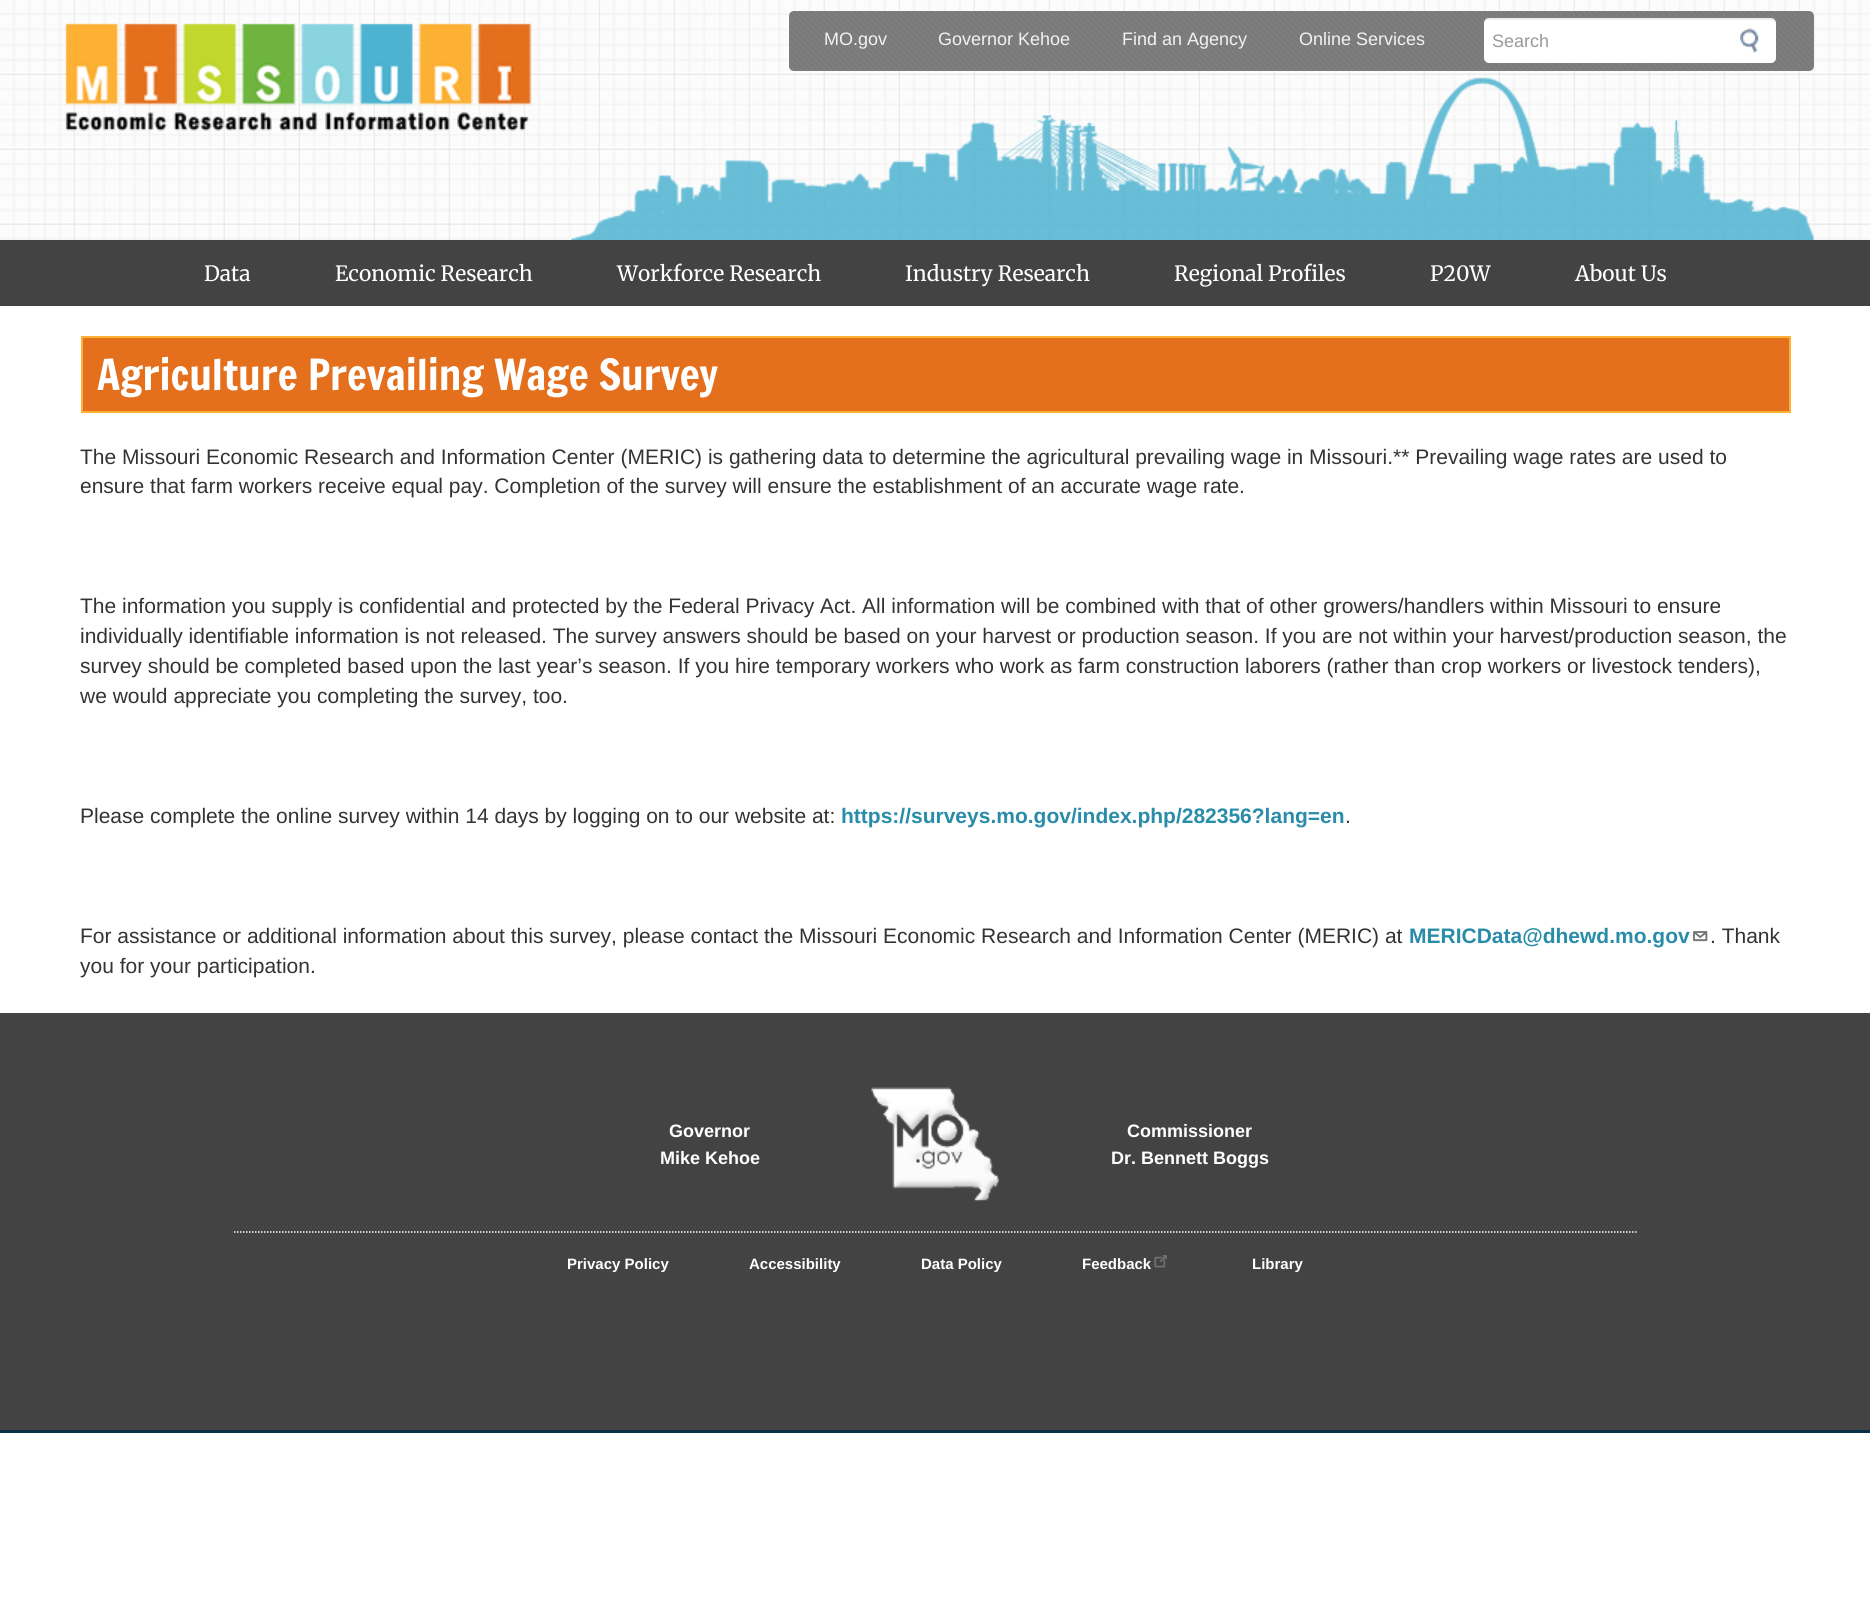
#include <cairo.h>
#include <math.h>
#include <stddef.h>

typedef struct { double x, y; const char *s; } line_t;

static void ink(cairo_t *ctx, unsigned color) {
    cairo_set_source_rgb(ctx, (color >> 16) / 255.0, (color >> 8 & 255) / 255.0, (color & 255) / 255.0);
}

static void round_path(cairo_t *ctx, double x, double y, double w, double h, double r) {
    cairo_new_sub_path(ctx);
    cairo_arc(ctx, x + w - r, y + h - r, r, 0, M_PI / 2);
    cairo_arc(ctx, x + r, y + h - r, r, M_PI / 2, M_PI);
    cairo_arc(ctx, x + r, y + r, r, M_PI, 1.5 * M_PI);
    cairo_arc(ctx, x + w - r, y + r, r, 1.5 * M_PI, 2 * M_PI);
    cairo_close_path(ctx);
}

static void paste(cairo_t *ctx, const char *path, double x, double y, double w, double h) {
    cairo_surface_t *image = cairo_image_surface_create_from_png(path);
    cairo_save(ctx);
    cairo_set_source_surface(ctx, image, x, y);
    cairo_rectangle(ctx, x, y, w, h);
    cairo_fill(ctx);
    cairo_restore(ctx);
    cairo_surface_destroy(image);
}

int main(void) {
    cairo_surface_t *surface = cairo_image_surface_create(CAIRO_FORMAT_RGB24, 1870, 1619);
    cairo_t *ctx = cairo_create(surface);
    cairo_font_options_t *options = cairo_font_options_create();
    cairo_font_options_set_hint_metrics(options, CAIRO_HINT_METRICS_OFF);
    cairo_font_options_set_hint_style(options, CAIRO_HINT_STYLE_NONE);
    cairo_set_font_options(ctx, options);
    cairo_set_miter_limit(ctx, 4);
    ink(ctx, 0xFFFFFF);
    cairo_paint(ctx);
    paste(ctx, "media/1.png", 0, 0, 1870, 240);
    paste(ctx, "media/2.png", 571, 77, 1243, 163);
    paste(ctx, "media/3.png", 65, 23, 467, 108);
    ink(ctx, 0x7F7F7F);
    round_path(ctx, 789, 11, 1025, 60, 5);
    cairo_fill(ctx);
    paste(ctx, "media/4.png", 789, 11, 1024, 59);
    cairo_select_font_face(ctx, "Liberation Sans", CAIRO_FONT_SLANT_NORMAL, CAIRO_FONT_WEIGHT_NORMAL);
    cairo_set_font_size(ctx, 18);
    ink(ctx, 0xEFF3F6);
    {
        static const line_t items[] = {
            {824, 45, "MO.gov"},
            {938, 45, "Governor Kehoe"},
            {1122, 45, "Find an Agency"},
            {1299, 45, "Online Services"},
        };
        for (size_t i = 0; i < sizeof items / sizeof *items; i++) {
            cairo_move_to(ctx, items[i].x, items[i].y);
            cairo_show_text(ctx, items[i].s);
        }
    }
    ink(ctx, 0xFFFFFF);
    round_path(ctx, 1484, 18, 292, 45, 5);
    cairo_fill(ctx);
    cairo_set_source_rgba(ctx, 0, 0, 0, 0.07);
    cairo_new_path(ctx);
    cairo_move_to(ctx, 1488, 20);
    cairo_line_to(ctx, 1772, 20);
    cairo_curve_to(ctx, 1774, 20, 1776, 22, 1776, 24);
    cairo_line_to(ctx, 1776, 23);
    cairo_curve_to(ctx, 1776, 20, 1774, 18, 1771, 18);
    cairo_line_to(ctx, 1489, 18);
    cairo_curve_to(ctx, 1486, 18, 1484, 20, 1484, 23);
    cairo_line_to(ctx, 1484, 24);
    cairo_curve_to(ctx, 1484, 22, 1486, 20, 1488, 20);
    cairo_close_path(ctx);
    cairo_fill(ctx);
    ink(ctx, 0x999999);
    cairo_move_to(ctx, 1492, 47);
    cairo_show_text(ctx, "Search");
    paste(ctx, "media/5.png", 1740, 28, 19, 25);
    ink(ctx, 0x434343);
    cairo_rectangle(ctx, 0, 240, 1870, 66);
    cairo_fill(ctx);
    cairo_select_font_face(ctx, "Merriweather Light", CAIRO_FONT_SLANT_NORMAL, CAIRO_FONT_WEIGHT_NORMAL);
    cairo_set_font_size(ctx, 21);
    ink(ctx, 0xFFFFFF);
    {
        static const line_t items[] = {
            {204, 281, "Data"},
            {335, 281, "Economic Research"},
            {617, 281, "Workforce Research"},
            {905, 281, "Industry Research"},
            {1174, 281, "Regional Profiles"},
            {1430, 281, "P20W"},
            {1575, 281, "About Us"},
        };
        for (size_t i = 0; i < sizeof items / sizeof *items; i++) {
            cairo_move_to(ctx, items[i].x, items[i].y);
            cairo_show_text(ctx, items[i].s);
        }
    }
    ink(ctx, 0xE4701D);
    cairo_rectangle(ctx, 82, 337, 1708, 75);
    cairo_fill_preserve(ctx);
    ink(ctx, 0xFCB034);
    cairo_stroke(ctx);
    cairo_select_font_face(ctx, "Francois One", CAIRO_FONT_SLANT_NORMAL, CAIRO_FONT_WEIGHT_NORMAL);
    cairo_set_font_size(ctx, 42);
    ink(ctx, 0xFFFFFF);
    cairo_move_to(ctx, 97, 390);
    cairo_show_text(ctx, "Agriculture Prevailing Wage Survey");
    cairo_select_font_face(ctx, "Liberation Sans", CAIRO_FONT_SLANT_NORMAL, CAIRO_FONT_WEIGHT_NORMAL);
    cairo_set_font_size(ctx, 21);
    ink(ctx, 0x333333);
    {
        static const line_t items[] = {
            {80, 464, "The Missouri Economic Research and Information Center (MERIC) is gathering data to determine the agricultural prevailing wage in Missouri.** Prevailing wage rates are used to"},
            {80, 493, "ensure that farm workers receive equal pay. Completion of the survey will ensure the establishment of an accurate wage rate."},
            {80, 613, "The information you supply is confidential and protected by the Federal Privacy Act. All information will be combined with that of other growers/handlers within Missouri to ensure"},
            {80, 643, "individually identifiable information is not released. The survey answers should be based on your harvest or production season. If you are not within your harvest/production season, the"},
            {80, 673, "survey should be completed based upon the last year’s season. If you hire temporary workers who work as farm construction laborers (rather than crop workers or livestock tenders),"},
            {80, 703, "we would appreciate you completing the survey, too."},
            {80, 823, "Please complete the online survey within 14 days by logging on to our website at:"},
        };
        for (size_t i = 0; i < sizeof items / sizeof *items; i++) {
            cairo_move_to(ctx, items[i].x, items[i].y);
            cairo_show_text(ctx, items[i].s);
        }
    }
    cairo_select_font_face(ctx, "Liberation Sans", CAIRO_FONT_SLANT_NORMAL, CAIRO_FONT_WEIGHT_BOLD);
    ink(ctx, 0x298CA9);
    cairo_move_to(ctx, 841, 823);
    cairo_show_text(ctx, "https://surveys.mo.gov/index.php/282356?lang=en");
    cairo_select_font_face(ctx, "Liberation Sans", CAIRO_FONT_SLANT_NORMAL, CAIRO_FONT_WEIGHT_NORMAL);
    ink(ctx, 0x333333);
    cairo_move_to(ctx, 1345, 823);
    cairo_show_text(ctx, ".");
    cairo_move_to(ctx, 80, 943);
    cairo_show_text(ctx, "For assistance or additional information about this survey, please contact the Missouri Economic Research and Information Center (MERIC) at");
    cairo_select_font_face(ctx, "Liberation Sans", CAIRO_FONT_SLANT_NORMAL, CAIRO_FONT_WEIGHT_BOLD);
    ink(ctx, 0x298CA9);
    cairo_move_to(ctx, 1409, 943);
    cairo_show_text(ctx, "MERICData@dhewd.mo.gov");
    paste(ctx, "media/6.png", 1693, 931, 15, 11);
    cairo_select_font_face(ctx, "Liberation Sans", CAIRO_FONT_SLANT_NORMAL, CAIRO_FONT_WEIGHT_NORMAL);
    ink(ctx, 0x333333);
    cairo_move_to(ctx, 1710, 943);
    cairo_show_text(ctx, ". Thank");
    cairo_move_to(ctx, 80, 973);
    cairo_show_text(ctx, "you for your participation.");
    ink(ctx, 0x434343);
    cairo_rectangle(ctx, 0, 1013, 1870, 417);
    cairo_fill(ctx);
    ink(ctx, 0x083149);
    cairo_rectangle(ctx, 0, 1430, 1870, 3);
    cairo_fill(ctx);
    cairo_select_font_face(ctx, "Liberation Sans", CAIRO_FONT_SLANT_NORMAL, CAIRO_FONT_WEIGHT_BOLD);
    cairo_set_font_size(ctx, 18);
    ink(ctx, 0xFFFFFF);
    cairo_move_to(ctx, 669, 1137);
    cairo_show_text(ctx, "Governor");
    cairo_move_to(ctx, 660, 1164);
    cairo_show_text(ctx, "Mike Kehoe");
    paste(ctx, "media/7.png", 871, 1087, 128, 115);
    cairo_move_to(ctx, 1127, 1137);
    cairo_show_text(ctx, "Commissioner");
    cairo_move_to(ctx, 1111, 1164);
    cairo_show_text(ctx, "Dr. Bennett Boggs");
    cairo_new_path(ctx);
    cairo_move_to(ctx, 234, 1232);
    cairo_line_to(ctx, 1638, 1232);
    cairo_set_line_width(ctx, 1.5);
    cairo_set_dash(ctx, (double[]){1.5, 1.5}, 2, 0);
    cairo_stroke(ctx);
    cairo_set_font_size(ctx, 15);
    {
        static const line_t items[] = {
            {567, 1269, "Privacy Policy"},
            {749, 1269, "Accessibility"},
            {921, 1269, "Data Policy"},
            {1082, 1269, "Feedback"},
        };
        for (size_t i = 0; i < sizeof items / sizeof *items; i++) {
            cairo_move_to(ctx, items[i].x, items[i].y);
            cairo_show_text(ctx, items[i].s);
        }
    }
    paste(ctx, "media/8.png", 1154, 1255, 13, 13);
    cairo_move_to(ctx, 1252, 1269);
    cairo_show_text(ctx, "Library");
    cairo_surface_write_to_png(surface, "image.png");
    cairo_font_options_destroy(options);
    cairo_destroy(ctx);
    cairo_surface_destroy(surface);
    return 0;
}
